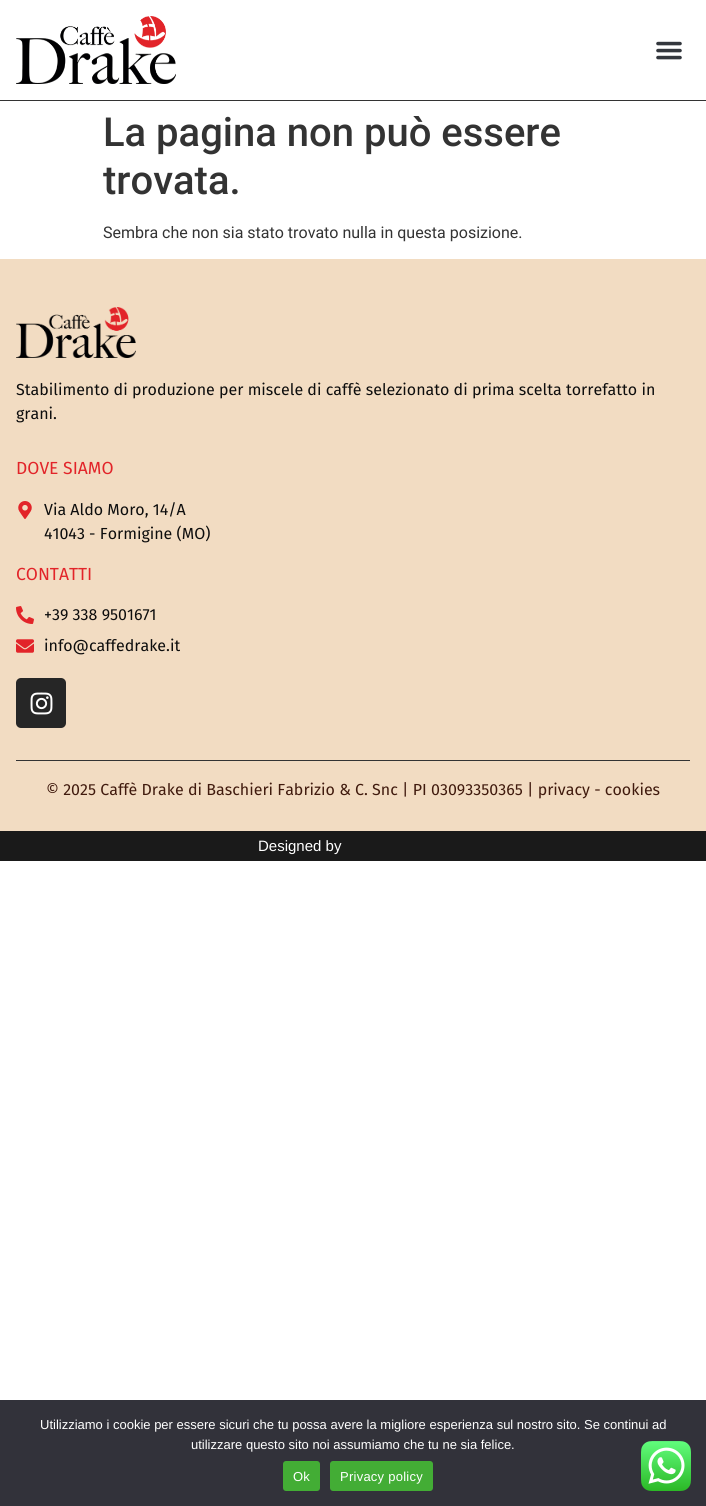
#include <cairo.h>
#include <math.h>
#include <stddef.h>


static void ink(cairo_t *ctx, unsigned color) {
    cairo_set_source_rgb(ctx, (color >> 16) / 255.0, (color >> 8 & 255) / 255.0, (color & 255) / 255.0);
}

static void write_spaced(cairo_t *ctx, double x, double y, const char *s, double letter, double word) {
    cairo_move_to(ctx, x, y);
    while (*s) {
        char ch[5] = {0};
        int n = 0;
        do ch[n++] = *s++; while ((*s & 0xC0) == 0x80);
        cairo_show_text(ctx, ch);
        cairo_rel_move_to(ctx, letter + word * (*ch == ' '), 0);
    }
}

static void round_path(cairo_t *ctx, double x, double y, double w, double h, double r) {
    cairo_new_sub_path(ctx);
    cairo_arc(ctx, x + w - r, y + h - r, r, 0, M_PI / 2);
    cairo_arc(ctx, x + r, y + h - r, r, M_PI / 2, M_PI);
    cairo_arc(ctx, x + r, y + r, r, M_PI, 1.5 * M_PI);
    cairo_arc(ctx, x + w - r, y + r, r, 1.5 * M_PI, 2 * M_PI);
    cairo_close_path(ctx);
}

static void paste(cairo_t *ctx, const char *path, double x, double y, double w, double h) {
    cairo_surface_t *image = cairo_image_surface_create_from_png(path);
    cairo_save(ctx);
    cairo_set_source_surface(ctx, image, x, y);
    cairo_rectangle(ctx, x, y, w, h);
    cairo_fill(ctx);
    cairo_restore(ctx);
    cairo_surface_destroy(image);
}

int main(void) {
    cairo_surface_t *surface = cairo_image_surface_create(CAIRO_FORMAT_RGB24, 706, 1506);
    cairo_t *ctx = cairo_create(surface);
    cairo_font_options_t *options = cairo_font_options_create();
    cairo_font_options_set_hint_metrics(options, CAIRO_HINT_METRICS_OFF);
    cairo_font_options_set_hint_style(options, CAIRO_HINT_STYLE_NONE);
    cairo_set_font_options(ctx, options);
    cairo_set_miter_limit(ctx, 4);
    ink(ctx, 0xFFFFFF);
    cairo_paint(ctx);
    ink(ctx, 0x333333);
    cairo_rectangle(ctx, 0, 100, 706, 1);
    cairo_fill(ctx);
    paste(ctx, "media/1.png", 16, 16, 160, 68);
    paste(ctx, "media/2.png", 656, 41, 26, 19);
    cairo_select_font_face(ctx, "Roboto Medium", CAIRO_FONT_SLANT_NORMAL, CAIRO_FONT_WEIGHT_NORMAL);
    cairo_set_font_size(ctx, 40);
    cairo_move_to(ctx, 103, 146);
    cairo_show_text(ctx, "La pagina non può essere");
    cairo_move_to(ctx, 103, 194);
    cairo_show_text(ctx, "trovata.");
    cairo_select_font_face(ctx, "Roboto", CAIRO_FONT_SLANT_NORMAL, CAIRO_FONT_WEIGHT_NORMAL);
    cairo_set_font_size(ctx, 16);
    cairo_move_to(ctx, 103, 238);
    cairo_show_text(ctx, "Sembra che non sia stato trovato nulla in questa posizione.");
    ink(ctx, 0xF2DCC2);
    cairo_rectangle(ctx, 0, 259, 706, 572);
    cairo_fill(ctx);
    ink(ctx, 0x333333);
    cairo_rectangle(ctx, 16, 760, 674, 1);
    cairo_fill(ctx);
    paste(ctx, "media/3.png", 16, 307, 120, 51);
    cairo_select_font_face(ctx, "Fira Sans", CAIRO_FONT_SLANT_NORMAL, CAIRO_FONT_WEIGHT_NORMAL);
    ink(ctx, 0x0D0D0D);
    cairo_move_to(ctx, 16, 395);
    cairo_show_text(ctx, "Stabilimento di produzione per miscele di caffè selezionato di prima scelta torrefatto in");
    cairo_move_to(ctx, 16, 419);
    cairo_show_text(ctx, "grani.");
    cairo_set_font_size(ctx, 17.5);
    ink(ctx, 0xE22429);
    cairo_move_to(ctx, 16, 474);
    cairo_show_text(ctx, "DOVE SIAMO");
    paste(ctx, "media/4.png", 18, 501, 14, 18);
    cairo_set_font_size(ctx, 16);
    ink(ctx, 0x0D0D0D);
    cairo_move_to(ctx, 44, 515);
    cairo_show_text(ctx, "Via Aldo Moro, 14/A");
    cairo_move_to(ctx, 44, 539);
    cairo_show_text(ctx, "41043 - Formigine (MO)");
    cairo_set_font_size(ctx, 17.5);
    ink(ctx, 0xE22429);
    cairo_move_to(ctx, 16, 580);
    cairo_show_text(ctx, "CONTATTI");
    paste(ctx, "media/5.png", 16, 606, 18, 18);
    cairo_set_font_size(ctx, 16);
    ink(ctx, 0x0D0D0D);
    cairo_move_to(ctx, 44, 620);
    cairo_show_text(ctx, "+39 338 9501671");
    paste(ctx, "media/6.png", 16, 639, 18, 14);
    cairo_move_to(ctx, 44, 651);
    cairo_show_text(ctx, "info@caffedrake.it");
    ink(ctx, 0x262626);
    round_path(ctx, 16, 678, 50, 50, 5);
    cairo_fill(ctx);
    paste(ctx, "media/7.png", 30, 692, 23, 23);
    ink(ctx, 0x401A0D);
    cairo_move_to(ctx, 46, 795);
    cairo_show_text(ctx, "© 2025 Caffè Drake di Baschieri Fabrizio & C. Snc | PI 03093350365 | privacy - cookies");
    ink(ctx, 0x1A1A1A);
    cairo_rectangle(ctx, 0, 831, 706, 30);
    cairo_fill(ctx);
    cairo_select_font_face(ctx, "Liberation Sans", CAIRO_FONT_SLANT_NORMAL, CAIRO_FONT_WEIGHT_NORMAL);
    cairo_set_font_size(ctx, 15);
    ink(ctx, 0xFFFFFF);
    cairo_move_to(ctx, 258, 851);
    cairo_show_text(ctx, "Designed by");
    ink(ctx, 0x32323A);
    cairo_rectangle(ctx, 0, 1400, 706, 106);
    cairo_fill(ctx);
    cairo_set_font_size(ctx, 13);
    ink(ctx, 0xFFFFFF);
    cairo_move_to(ctx, 40, 1429);
    cairo_show_text(ctx, "Utilizziamo i cookie per essere sicuri che tu possa avere la migliore esperienza sul nostro sito. Se continui ad");
    cairo_move_to(ctx, 191, 1449);
    cairo_show_text(ctx, "utilizzare questo sito noi assumiamo che tu ne sia felice.");
    ink(ctx, 0x43AD35);
    round_path(ctx, 283, 1461, 37, 30, 3);
    cairo_fill(ctx);
    ink(ctx, 0xFFFFFF);
    write_spaced(ctx, 293, 1481, "Ok", 0.25, 0);
    ink(ctx, 0x43AD35);
    round_path(ctx, 330, 1461, 103, 30, 3);
    cairo_fill(ctx);
    ink(ctx, 0xFFFFFF);
    write_spaced(ctx, 340, 1481, "Privacy policy", 0.25, 0);
    paste(ctx, "media/8.png", 641, 1441, 50, 50);
    cairo_surface_write_to_png(surface, "image.png");
    cairo_font_options_destroy(options);
    cairo_destroy(ctx);
    cairo_surface_destroy(surface);
    return 0;
}
